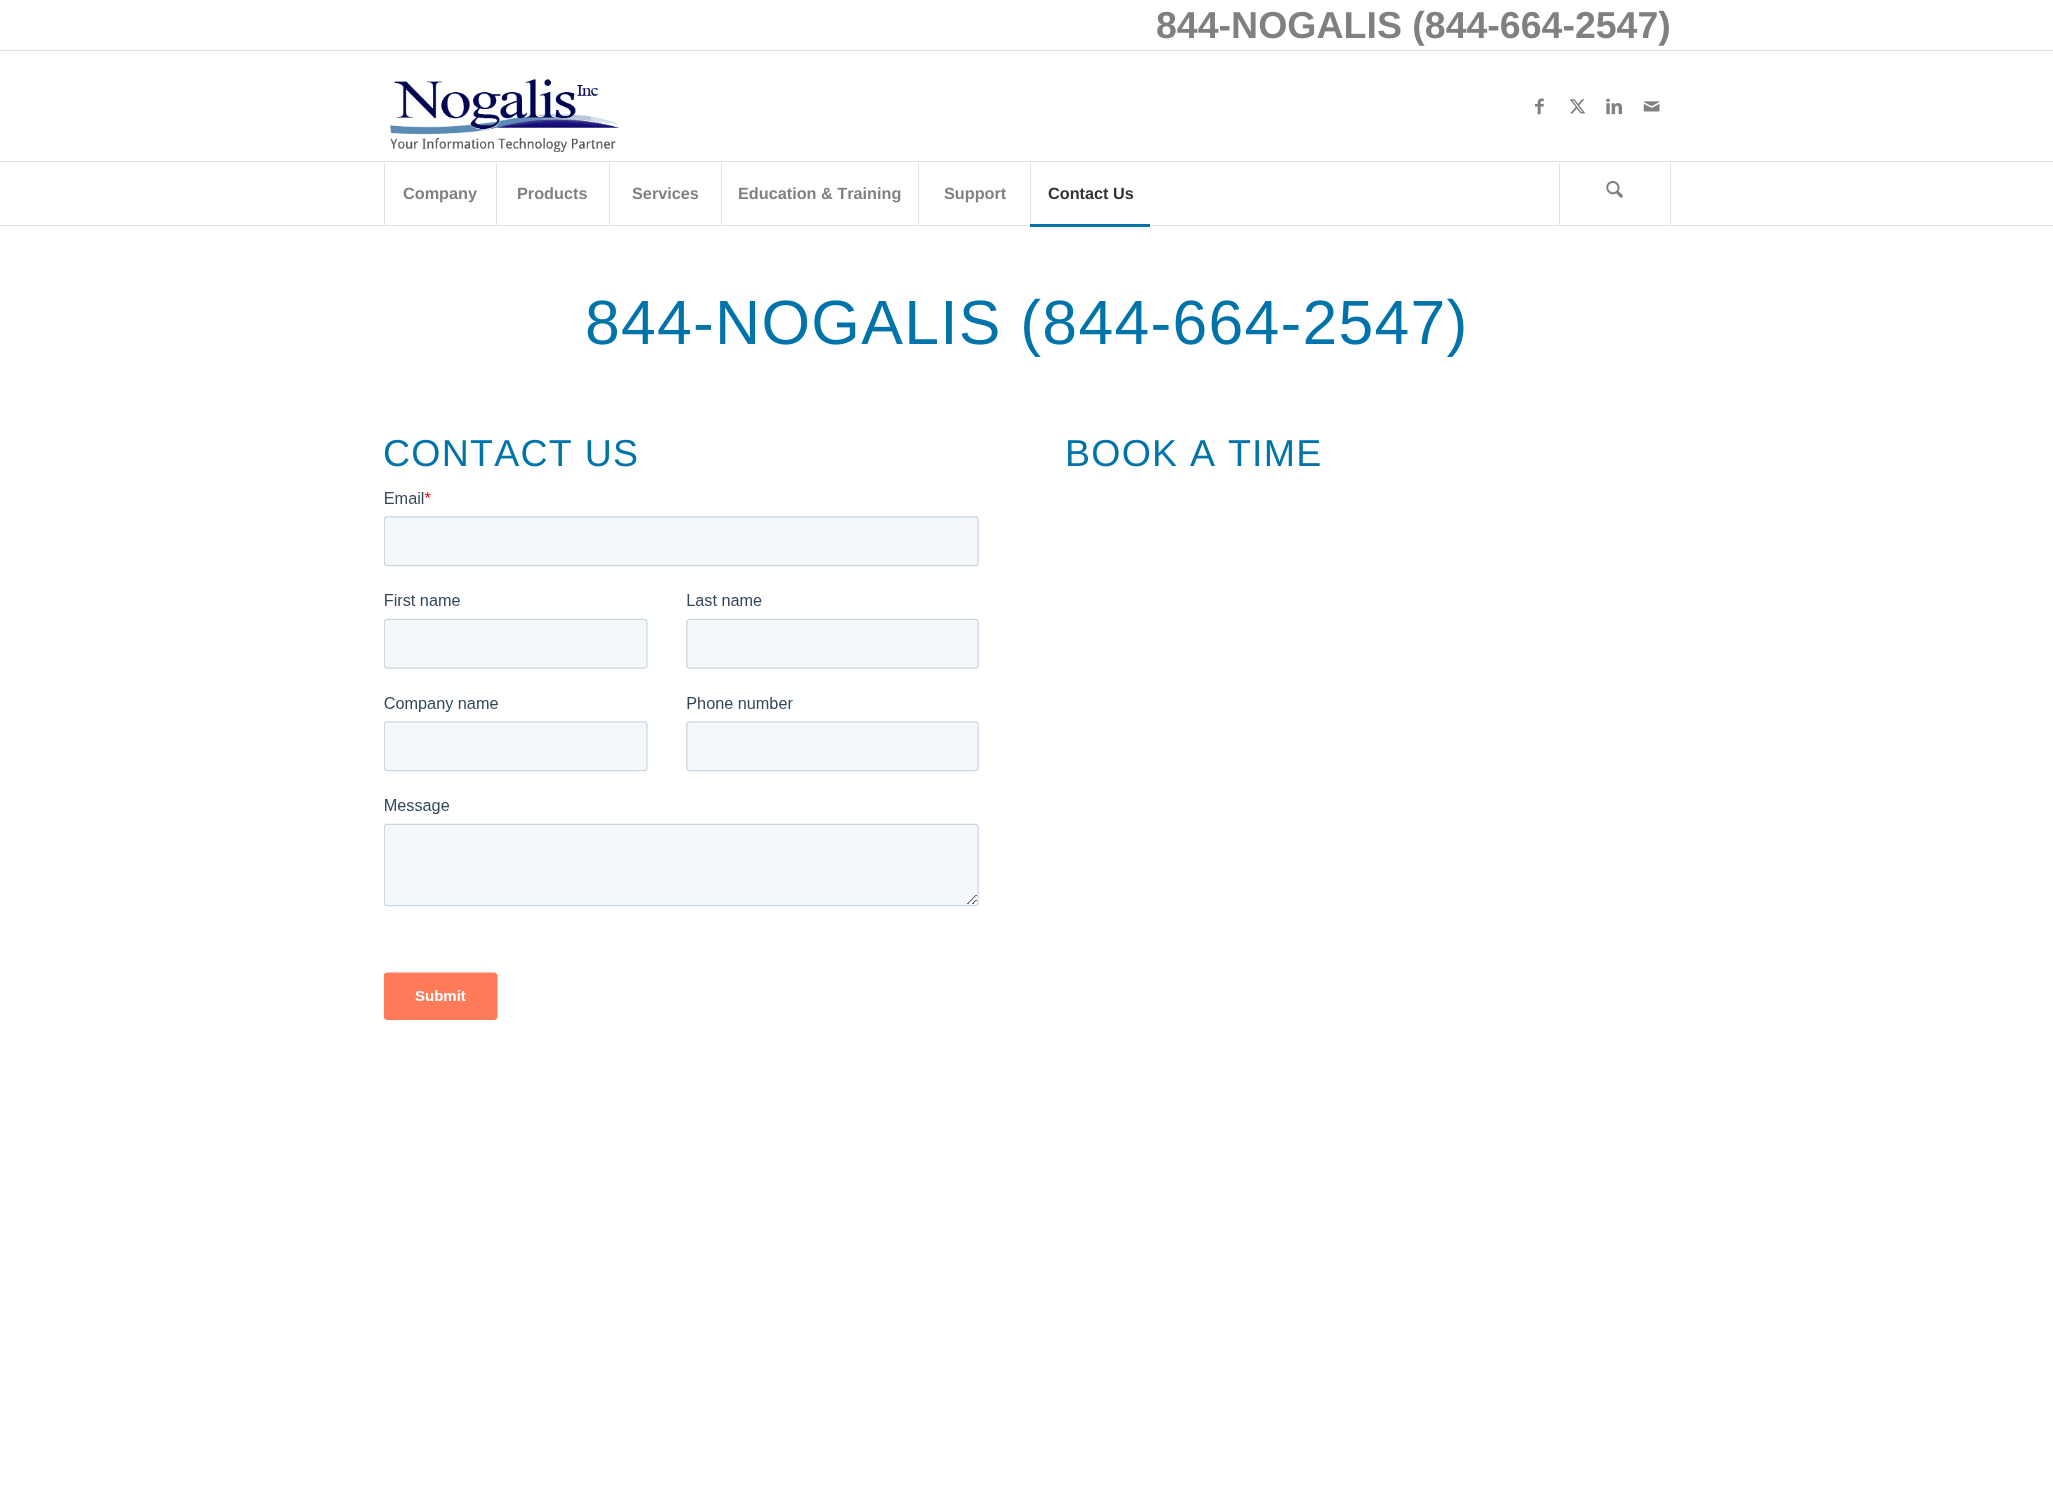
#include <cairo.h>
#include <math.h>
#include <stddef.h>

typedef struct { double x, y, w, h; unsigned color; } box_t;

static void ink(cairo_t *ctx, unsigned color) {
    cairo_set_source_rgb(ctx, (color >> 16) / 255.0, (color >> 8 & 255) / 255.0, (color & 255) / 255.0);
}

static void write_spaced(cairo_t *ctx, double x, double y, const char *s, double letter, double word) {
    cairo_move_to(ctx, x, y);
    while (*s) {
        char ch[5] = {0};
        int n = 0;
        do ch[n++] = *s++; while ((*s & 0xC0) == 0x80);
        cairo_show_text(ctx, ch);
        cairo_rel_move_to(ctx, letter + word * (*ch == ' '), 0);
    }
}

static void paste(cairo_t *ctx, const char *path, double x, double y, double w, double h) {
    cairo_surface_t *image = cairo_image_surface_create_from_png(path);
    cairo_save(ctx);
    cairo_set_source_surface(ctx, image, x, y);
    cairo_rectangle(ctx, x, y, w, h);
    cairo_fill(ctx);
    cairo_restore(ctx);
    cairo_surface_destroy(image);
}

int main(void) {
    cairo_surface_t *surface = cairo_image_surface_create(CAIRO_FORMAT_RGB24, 2053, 1498);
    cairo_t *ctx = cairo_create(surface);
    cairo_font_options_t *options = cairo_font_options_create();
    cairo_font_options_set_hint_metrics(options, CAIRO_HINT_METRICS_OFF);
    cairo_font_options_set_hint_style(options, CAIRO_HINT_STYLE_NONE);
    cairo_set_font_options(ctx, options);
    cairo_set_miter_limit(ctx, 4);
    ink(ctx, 0xFFFFFF);
    cairo_paint(ctx);
    ink(ctx, 0xE1E1E1);
    cairo_rectangle(ctx, 0, 50, 2053, 1);
    cairo_fill(ctx);
    cairo_select_font_face(ctx, "Liberation Sans", CAIRO_FONT_SLANT_NORMAL, CAIRO_FONT_WEIGHT_BOLD);
    cairo_set_font_size(ctx, 37.5);
    ink(ctx, 0x808080);
    cairo_move_to(ctx, 1156, 38);
    cairo_show_text(ctx, "844-NOGALIS (844-664-2547)");
    ink(ctx, 0xE1E1E1);
    cairo_rectangle(ctx, 0, 225, 2053, 1);
    cairo_fill(ctx);
    paste(ctx, "media/1.png", 390, 79, 229, 73);
    paste(ctx, "media/2.png", 1535, 98, 9, 17);
    paste(ctx, "media/3.png", 1569, 99, 17, 15);
    paste(ctx, "media/4.png", 1606, 98, 16, 17);
    paste(ctx, "media/5.png", 1643, 101, 17, 11);
    cairo_rectangle(ctx, 0, 161, 2053, 1);
    cairo_fill(ctx);
    cairo_rectangle(ctx, 384, 163, 1, 62);
    cairo_fill(ctx);
    cairo_set_font_size(ctx, 16.25);
    ink(ctx, 0x808080);
    cairo_move_to(ctx, 403, 199);
    cairo_show_text(ctx, "Company");
    ink(ctx, 0xE1E1E1);
    cairo_rectangle(ctx, 496, 163, 1, 62);
    cairo_fill(ctx);
    ink(ctx, 0x808080);
    cairo_move_to(ctx, 517, 199);
    cairo_show_text(ctx, "Products");
    ink(ctx, 0xE1E1E1);
    cairo_rectangle(ctx, 609, 163, 1, 62);
    cairo_fill(ctx);
    ink(ctx, 0x808080);
    cairo_move_to(ctx, 632, 199);
    cairo_show_text(ctx, "Services");
    ink(ctx, 0xE1E1E1);
    cairo_rectangle(ctx, 721, 163, 1, 62);
    cairo_fill(ctx);
    ink(ctx, 0x808080);
    cairo_move_to(ctx, 738, 199);
    cairo_show_text(ctx, "Education & Training");
    ink(ctx, 0xE1E1E1);
    cairo_rectangle(ctx, 918, 163, 1, 62);
    cairo_fill(ctx);
    ink(ctx, 0x808080);
    cairo_move_to(ctx, 944, 199);
    cairo_show_text(ctx, "Support");
    ink(ctx, 0xE1E1E1);
    cairo_rectangle(ctx, 1030, 163, 1, 62);
    cairo_fill(ctx);
    ink(ctx, 0x333333);
    cairo_move_to(ctx, 1048, 199);
    cairo_show_text(ctx, "Contact Us");
    {
        static const box_t items[] = {
            {1030, 224, 120, 3, 0x0074AA},
            {1670, 163, 1, 62, 0xE1E1E1},
            {1559, 163, 1, 62, 0xE1E1E1},
        };
        for (size_t i = 0; i < sizeof items / sizeof *items; i++) {
            ink(ctx, items[i].color);
            cairo_rectangle(ctx, items[i].x, items[i].y, items[i].w, items[i].h);
            cairo_fill(ctx);
        }
    }
    paste(ctx, "media/6.png", 1606, 181, 17, 17);
    cairo_select_font_face(ctx, "Liberation Sans", CAIRO_FONT_SLANT_NORMAL, CAIRO_FONT_WEIGHT_NORMAL);
    cairo_set_font_size(ctx, 62.5);
    ink(ctx, 0x0074AA);
    write_spaced(ctx, 585, 344, "844-NOGALIS (844-664-2547)", 1.25, 0);
    cairo_set_font_size(ctx, 37.5);
    write_spaced(ctx, 383, 466, "CONTACT US", 1.25, 0);
    paste(ctx, "media/7.png", 383, 492, 596, 528);
    write_spaced(ctx, 1065, 466, "BOOK A TIME", 1.25, 0);
    cairo_surface_write_to_png(surface, "image.png");
    cairo_font_options_destroy(options);
    cairo_destroy(ctx);
    cairo_surface_destroy(surface);
    return 0;
}
